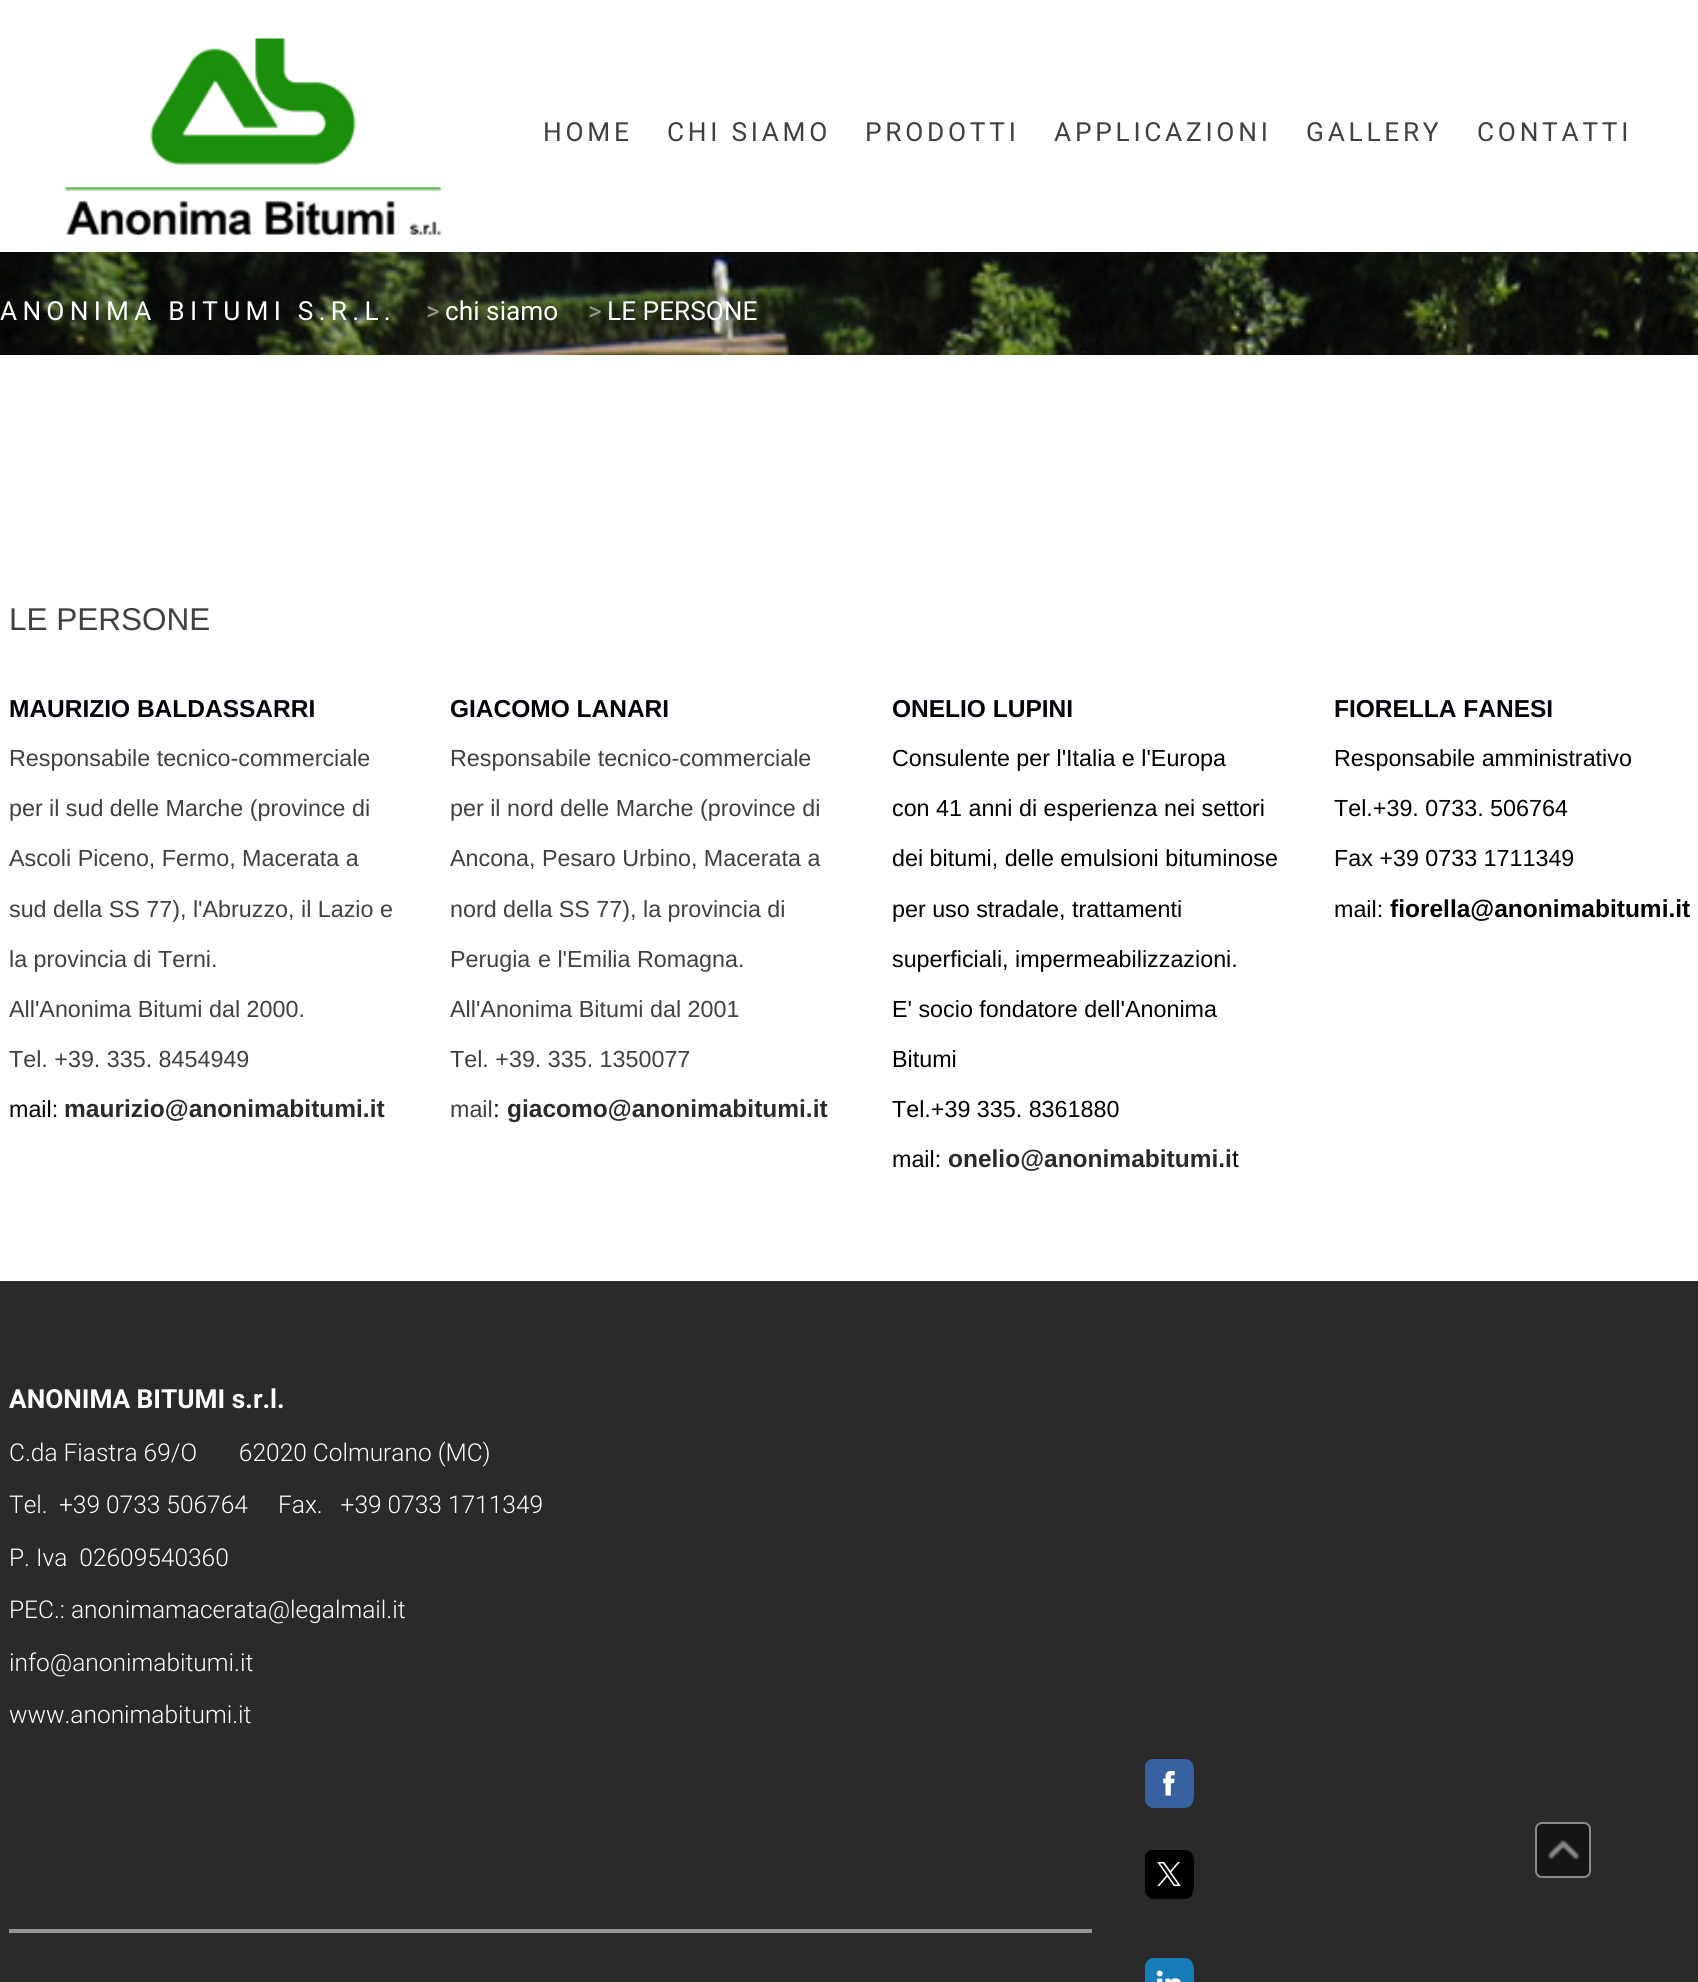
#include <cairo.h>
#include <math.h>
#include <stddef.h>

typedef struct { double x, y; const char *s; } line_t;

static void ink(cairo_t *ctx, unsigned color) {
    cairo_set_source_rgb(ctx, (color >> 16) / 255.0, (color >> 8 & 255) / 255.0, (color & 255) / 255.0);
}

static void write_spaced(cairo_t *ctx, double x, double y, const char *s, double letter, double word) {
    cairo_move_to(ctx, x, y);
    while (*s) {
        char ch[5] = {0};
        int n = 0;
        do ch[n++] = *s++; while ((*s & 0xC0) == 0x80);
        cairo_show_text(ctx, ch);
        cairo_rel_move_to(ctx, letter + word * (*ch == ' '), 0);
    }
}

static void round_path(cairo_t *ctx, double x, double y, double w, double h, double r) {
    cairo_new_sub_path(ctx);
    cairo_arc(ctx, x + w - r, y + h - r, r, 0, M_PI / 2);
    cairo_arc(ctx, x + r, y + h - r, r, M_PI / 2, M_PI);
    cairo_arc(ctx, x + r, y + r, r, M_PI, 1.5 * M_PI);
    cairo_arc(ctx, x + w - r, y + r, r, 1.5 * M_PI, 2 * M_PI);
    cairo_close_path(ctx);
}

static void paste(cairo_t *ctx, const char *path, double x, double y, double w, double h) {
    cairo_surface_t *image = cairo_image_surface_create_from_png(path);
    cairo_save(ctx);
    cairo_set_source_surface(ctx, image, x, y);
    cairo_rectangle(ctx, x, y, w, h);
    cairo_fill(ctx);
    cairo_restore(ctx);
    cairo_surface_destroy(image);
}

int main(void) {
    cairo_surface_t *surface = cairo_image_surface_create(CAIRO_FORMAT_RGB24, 1698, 1982);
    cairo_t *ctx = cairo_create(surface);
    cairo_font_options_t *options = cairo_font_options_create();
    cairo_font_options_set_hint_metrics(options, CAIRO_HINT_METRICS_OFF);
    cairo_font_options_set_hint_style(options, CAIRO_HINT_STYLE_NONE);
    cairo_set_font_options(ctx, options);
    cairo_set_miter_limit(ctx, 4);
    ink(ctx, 0xFFFFFF);
    cairo_paint(ctx);
    paste(ctx, "media/1.png", 64, 38, 378, 199);
    cairo_select_font_face(ctx, "Roboto", CAIRO_FONT_SLANT_NORMAL, CAIRO_FONT_WEIGHT_NORMAL);
    cairo_set_font_size(ctx, 26.25);
    ink(ctx, 0x404040);
    {
        static const line_t items[] = {
            {543, 141, "HOME"},
            {667, 141, "CHI SIAMO"},
            {865, 141, "PRODOTTI"},
            {1054, 141, "APPLICAZIONI"},
            {1306, 141, "GALLERY"},
            {1477, 141, "CONTATTI"},
        };
        for (size_t i = 0; i < sizeof items / sizeof *items; i++) {
            write_spaced(ctx, items[i].x, items[i].y, items[i].s, 3.75, 0);
        }
    }
    paste(ctx, "media/5.png", 0, 252, 1698, 103);
    ink(ctx, 0xFFFFFF);
    write_spaced(ctx, 0, 320, "ANONIMA BITUMI S.R.L.", 5.25, 0);
    ink(ctx, 0x97998F);
    cairo_move_to(ctx, 426, 320);
    cairo_show_text(ctx, ">");
    ink(ctx, 0xFFFFFF);
    cairo_move_to(ctx, 445, 320);
    cairo_show_text(ctx, "chi siamo");
    ink(ctx, 0x97998F);
    cairo_move_to(ctx, 588, 320);
    cairo_show_text(ctx, ">");
    ink(ctx, 0xFFFFFF);
    cairo_move_to(ctx, 607, 320);
    cairo_show_text(ctx, "LE PERSONE");
    cairo_select_font_face(ctx, "Liberation Sans", CAIRO_FONT_SLANT_NORMAL, CAIRO_FONT_WEIGHT_NORMAL);
    cairo_set_font_size(ctx, 31.5);
    ink(ctx, 0x404040);
    cairo_move_to(ctx, 9, 630);
    cairo_show_text(ctx, "LE PERSONE");
    cairo_select_font_face(ctx, "Liberation Sans", CAIRO_FONT_SLANT_NORMAL, CAIRO_FONT_WEIGHT_BOLD);
    cairo_set_font_size(ctx, 24.5);
    ink(ctx, 0x00000A);
    cairo_move_to(ctx, 9, 717);
    cairo_show_text(ctx, "MAURIZIO BALDASSARRI");
    cairo_select_font_face(ctx, "Liberation Sans", CAIRO_FONT_SLANT_NORMAL, CAIRO_FONT_WEIGHT_NORMAL);
    cairo_set_font_size(ctx, 23.3);
    ink(ctx, 0x404040);
    {
        static const line_t items[] = {
            {9, 766, "Responsabile tecnico-commerciale"},
            {9, 816, "per"},
            {49, 816, "il sud delle Marche (province di"},
            {9, 866, "Ascoli Piceno, Fermo, Macerata a"},
            {9, 917, "sud della SS 77), l'Abruzzo, il Lazio e"},
            {9, 967, "la provincia di Terni."},
            {9, 1017, "All'Anonima Bitumi dal 2000."},
            {9, 1067, "Tel. +39. 335. 8454949"},
        };
        for (size_t i = 0; i < sizeof items / sizeof *items; i++) {
            cairo_move_to(ctx, items[i].x, items[i].y);
            cairo_show_text(ctx, items[i].s);
        }
    }
    ink(ctx, 0x000000);
    cairo_move_to(ctx, 9, 1117);
    cairo_show_text(ctx, "mail:");
    cairo_select_font_face(ctx, "Liberation Sans", CAIRO_FONT_SLANT_NORMAL, CAIRO_FONT_WEIGHT_BOLD);
    cairo_set_font_size(ctx, 24.5);
    ink(ctx, 0x2A2A2A);
    cairo_move_to(ctx, 64, 1117);
    cairo_show_text(ctx, "maurizio@anonimabitumi.it");
    ink(ctx, 0x00000A);
    cairo_move_to(ctx, 450, 717);
    cairo_show_text(ctx, "GIACOMO LANARI");
    cairo_select_font_face(ctx, "Liberation Sans", CAIRO_FONT_SLANT_NORMAL, CAIRO_FONT_WEIGHT_NORMAL);
    cairo_set_font_size(ctx, 23.3);
    ink(ctx, 0x404040);
    {
        static const line_t items[] = {
            {450, 766, "Responsabile tecnico-commerciale"},
            {450, 816, "per il nord delle Marche (province di"},
            {450, 866, "Ancona, Pesaro Urbino, Macerata a"},
            {450, 917, "nord della SS 77), la provincia di"},
            {450, 967, "Perugia"},
            {538, 967, "e l'Emilia Romagna."},
            {450, 1017, "All'Anonima Bitumi dal 2001"},
            {450, 1067, "Tel. +39. 335. 1350077"},
            {450, 1117, "mail"},
        };
        for (size_t i = 0; i < sizeof items / sizeof *items; i++) {
            cairo_move_to(ctx, items[i].x, items[i].y);
            cairo_show_text(ctx, items[i].s);
        }
    }
    cairo_set_font_size(ctx, 24.5);
    ink(ctx, 0x00000A);
    cairo_move_to(ctx, 493, 1117);
    cairo_show_text(ctx, ":");
    cairo_select_font_face(ctx, "Liberation Sans", CAIRO_FONT_SLANT_NORMAL, CAIRO_FONT_WEIGHT_BOLD);
    ink(ctx, 0x2A2A2A);
    cairo_move_to(ctx, 507, 1117);
    cairo_show_text(ctx, "giacomo@anonimabitumi.it");
    ink(ctx, 0x00000A);
    cairo_move_to(ctx, 892, 717);
    cairo_show_text(ctx, "ONELIO LUPINI");
    cairo_select_font_face(ctx, "Liberation Sans", CAIRO_FONT_SLANT_NORMAL, CAIRO_FONT_WEIGHT_NORMAL);
    cairo_set_font_size(ctx, 23.3);
    ink(ctx, 0x000000);
    {
        static const line_t items[] = {
            {892, 766, "Consulente per l'Italia e l'Europa"},
            {892, 816, "con 41 anni di esperienza nei settori"},
            {892, 866, "dei bitumi, delle emulsioni bituminose"},
            {892, 917, "per uso stradale, trattamenti"},
            {892, 967, "superficiali, impermeabilizzazioni."},
            {892, 1017, "E' socio fondatore dell'Anonima"},
            {892, 1067, "Bitumi"},
            {892, 1117, "Tel.+39 335. 8361880"},
            {892, 1167, "mail:"},
        };
        for (size_t i = 0; i < sizeof items / sizeof *items; i++) {
            cairo_move_to(ctx, items[i].x, items[i].y);
            cairo_show_text(ctx, items[i].s);
        }
    }
    cairo_select_font_face(ctx, "Liberation Sans", CAIRO_FONT_SLANT_NORMAL, CAIRO_FONT_WEIGHT_BOLD);
    cairo_set_font_size(ctx, 24.5);
    ink(ctx, 0x2A2A2A);
    cairo_move_to(ctx, 948, 1167);
    cairo_show_text(ctx, "onelio@anonimabitumi.i");
    cairo_select_font_face(ctx, "Liberation Sans", CAIRO_FONT_SLANT_NORMAL, CAIRO_FONT_WEIGHT_NORMAL);
    ink(ctx, 0x000000);
    cairo_move_to(ctx, 1232, 1167);
    cairo_show_text(ctx, "t");
    cairo_select_font_face(ctx, "Liberation Sans", CAIRO_FONT_SLANT_NORMAL, CAIRO_FONT_WEIGHT_BOLD);
    ink(ctx, 0x00000A);
    cairo_move_to(ctx, 1334, 717);
    cairo_show_text(ctx, "FIORELLA FANESI");
    cairo_select_font_face(ctx, "Liberation Sans", CAIRO_FONT_SLANT_NORMAL, CAIRO_FONT_WEIGHT_NORMAL);
    cairo_set_font_size(ctx, 23.3);
    ink(ctx, 0x000000);
    {
        static const line_t items[] = {
            {1334, 766, "Responsabile amministrativo"},
            {1334, 816, "Tel.+39. 0733. 506764"},
            {1334, 866, "Fax +39 0733 1711349"},
            {1334, 917, "mail:"},
        };
        for (size_t i = 0; i < sizeof items / sizeof *items; i++) {
            cairo_move_to(ctx, items[i].x, items[i].y);
            cairo_show_text(ctx, items[i].s);
        }
    }
    cairo_select_font_face(ctx, "Liberation Sans", CAIRO_FONT_SLANT_NORMAL, CAIRO_FONT_WEIGHT_BOLD);
    cairo_set_font_size(ctx, 24.5);
    cairo_move_to(ctx, 1390, 917);
    cairo_show_text(ctx, "fiorella@anonimabitumi.it");
    ink(ctx, 0x2A2A2A);
    cairo_rectangle(ctx, 0, 1281, 1698, 701);
    cairo_fill(ctx);
    cairo_select_font_face(ctx, "Roboto", CAIRO_FONT_SLANT_NORMAL, CAIRO_FONT_WEIGHT_BOLD);
    cairo_set_font_size(ctx, 26.25);
    ink(ctx, 0xFFFFFF);
    cairo_move_to(ctx, 9, 1408);
    cairo_show_text(ctx, "ANONIMA BITUMI s.r.l.");
    cairo_select_font_face(ctx, "Roboto Light", CAIRO_FONT_SLANT_NORMAL, CAIRO_FONT_WEIGHT_NORMAL);
    cairo_set_font_size(ctx, 24.5);
    {
        static const line_t items[] = {
            {9, 1461, "C.da Fiastra 69/O       62020 Colmurano (MC)"},
            {9, 1513, "Tel."},
            {59, 1513, "+39 0733 506764"},
            {278, 1513, "Fax.   +39 0733 1711349"},
            {9, 1566, "P. Iva  02609540360"},
            {9, 1618, "PEC.: anonimamacerata@legalmail.it"},
            {9, 1671, "info@anonimabitumi.it"},
            {9, 1723, "www.anonimabitumi.it"},
        };
        for (size_t i = 0; i < sizeof items / sizeof *items; i++) {
            cairo_move_to(ctx, items[i].x, items[i].y);
            cairo_show_text(ctx, items[i].s);
        }
    }
    ink(ctx, 0x969696);
    cairo_rectangle(ctx, 9, 1929, 1083, 4);
    cairo_fill(ctx);
    cairo_save(ctx);
    cairo_rectangle(ctx, 1145, 1759, 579, 73);
    cairo_clip(ctx);
    ink(ctx, 0x38619F);
    cairo_new_path(ctx);
    cairo_move_to(ctx, 1184, 1808);
    cairo_line_to(ctx, 1152, 1808);
    cairo_curve_to(ctx, 1145, 1806, 1144, 1799, 1144, 1793);
    cairo_line_to(ctx, 1144, 1773);
    cairo_curve_to(ctx, 1144, 1767, 1145, 1760, 1152, 1759);
    cairo_line_to(ctx, 1184, 1759);
    cairo_curve_to(ctx, 1193, 1759, 1194, 1766, 1194, 1773);
    cairo_line_to(ctx, 1194, 1793);
    cairo_curve_to(ctx, 1194, 1800, 1193, 1808, 1184, 1808);
    cairo_close_path(ctx);
    cairo_fill(ctx);
    cairo_restore(ctx);
    paste(ctx, "media/2.png", 1163, 1771, 12, 25);
    cairo_save(ctx);
    cairo_rectangle(ctx, 1145, 1850, 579, 73);
    cairo_clip(ctx);
    ink(ctx, 0x000000);
    cairo_new_path(ctx);
    cairo_move_to(ctx, 1184, 1899);
    cairo_line_to(ctx, 1152, 1899);
    cairo_curve_to(ctx, 1145, 1897, 1144, 1890, 1144, 1884);
    cairo_line_to(ctx, 1144, 1864);
    cairo_curve_to(ctx, 1144, 1858, 1145, 1851, 1152, 1850);
    cairo_line_to(ctx, 1184, 1850);
    cairo_curve_to(ctx, 1193, 1850, 1194, 1857, 1194, 1864);
    cairo_line_to(ctx, 1194, 1884);
    cairo_curve_to(ctx, 1194, 1891, 1193, 1899, 1184, 1899);
    cairo_close_path(ctx);
    cairo_fill(ctx);
    cairo_restore(ctx);
    paste(ctx, "media/3.png", 1157, 1862, 24, 25);
    cairo_save(ctx);
    cairo_rectangle(ctx, 1145, 1958, 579, 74);
    cairo_clip(ctx);
    ink(ctx, 0x177DB9);
    cairo_new_path(ctx);
    cairo_move_to(ctx, 1184, 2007);
    cairo_line_to(ctx, 1152, 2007);
    cairo_curve_to(ctx, 1145, 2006, 1144, 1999, 1144, 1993);
    cairo_line_to(ctx, 1144, 1973);
    cairo_curve_to(ctx, 1144, 1967, 1145, 1960, 1152, 1958);
    cairo_line_to(ctx, 1184, 1958);
    cairo_curve_to(ctx, 1193, 1958, 1194, 1966, 1194, 1973);
    cairo_line_to(ctx, 1194, 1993);
    cairo_curve_to(ctx, 1194, 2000, 1193, 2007, 1184, 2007);
    cairo_close_path(ctx);
    cairo_fill(ctx);
    cairo_restore(ctx);
    paste(ctx, "media/4.png", 1156, 1970, 25, 12);
    ink(ctx, 0x151515);
    round_path(ctx, 1535, 1822, 56, 56, 7);
    cairo_fill(ctx);
    round_path(ctx, 1536, 1823, 54, 54, 6);
    cairo_set_source_rgba(ctx, 1, 1, 1, 0.5);
    cairo_stroke(ctx);
    paste(ctx, "media/6.png", 1548, 1840, 32, 20);
    cairo_surface_write_to_png(surface, "image.png");
    cairo_font_options_destroy(options);
    cairo_destroy(ctx);
    cairo_surface_destroy(surface);
    return 0;
}
